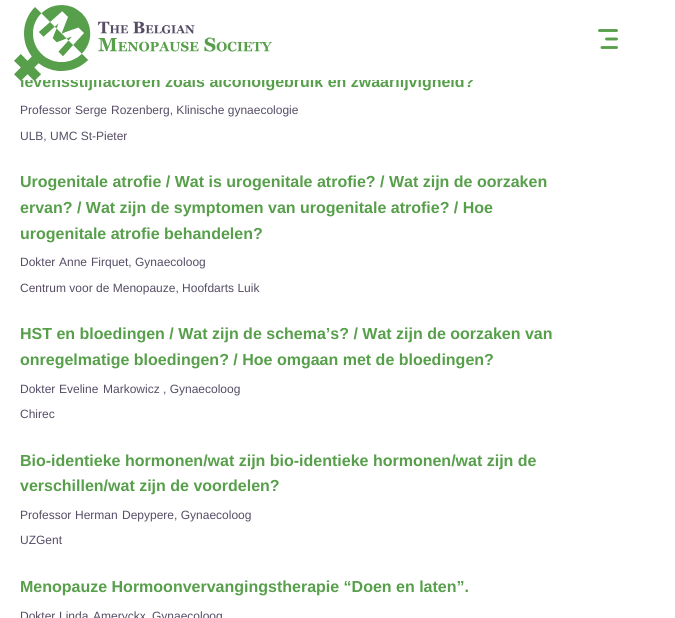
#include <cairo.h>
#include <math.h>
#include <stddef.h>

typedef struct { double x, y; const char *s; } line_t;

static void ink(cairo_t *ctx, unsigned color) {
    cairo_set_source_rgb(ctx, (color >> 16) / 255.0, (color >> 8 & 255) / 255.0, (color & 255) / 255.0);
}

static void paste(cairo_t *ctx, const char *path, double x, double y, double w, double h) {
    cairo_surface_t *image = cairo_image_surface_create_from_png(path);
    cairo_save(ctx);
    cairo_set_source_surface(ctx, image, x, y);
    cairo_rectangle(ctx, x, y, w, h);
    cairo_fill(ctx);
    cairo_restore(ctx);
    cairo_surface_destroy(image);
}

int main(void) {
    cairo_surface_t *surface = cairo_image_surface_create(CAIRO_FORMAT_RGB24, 675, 618);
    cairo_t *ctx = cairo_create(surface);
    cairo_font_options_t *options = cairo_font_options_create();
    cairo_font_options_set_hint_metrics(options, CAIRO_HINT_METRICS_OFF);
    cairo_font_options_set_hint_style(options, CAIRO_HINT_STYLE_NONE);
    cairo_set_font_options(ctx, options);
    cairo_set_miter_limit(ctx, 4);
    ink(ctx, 0xFFFFFF);
    cairo_paint(ctx);
    cairo_select_font_face(ctx, "Liberation Sans", CAIRO_FONT_SLANT_NORMAL, CAIRO_FONT_WEIGHT_BOLD);
    cairo_set_font_size(ctx, 16);
    ink(ctx, 0x579F4B);
    cairo_move_to(ctx, 20, 87);
    cairo_show_text(ctx, "levensstijlfactoren zoals alcoholgebruik en zwaarlijvigheid?");
    ink(ctx, 0xFFFFFF);
    cairo_rectangle(ctx, 21, 75, 453, 5);
    cairo_fill(ctx);
    paste(ctx, "media/1.png", 14, 5, 258, 76);
    cairo_new_path(ctx);
    cairo_move_to(ctx, 606.5, 39);
    cairo_line_to(ctx, 616.5, 39);
    cairo_move_to(ctx, 599.5, 30.5);
    cairo_line_to(ctx, 616.5, 30.5);
    cairo_move_to(ctx, 602, 47.5);
    cairo_line_to(ctx, 616.5, 47.5);
    ink(ctx, 0x579F4B);
    cairo_set_line_width(ctx, 2.9);
    cairo_set_line_cap(ctx, CAIRO_LINE_CAP_ROUND);
    cairo_set_line_join(ctx, CAIRO_LINE_JOIN_ROUND);
    cairo_stroke(ctx);
    cairo_select_font_face(ctx, "Liberation Sans", CAIRO_FONT_SLANT_NORMAL, CAIRO_FONT_WEIGHT_NORMAL);
    cairo_set_font_size(ctx, 12);
    ink(ctx, 0x564D65);
    {
        static const line_t items[] = {
            {20, 114, "Professor"},
            {75, 114, "Serge"},
            {111, 114, "Rozenberg, Klinische gynaecologie"},
            {20, 140, "ULB, UMC St-Pieter"},
        };
        for (size_t i = 0; i < sizeof items / sizeof *items; i++) {
            cairo_move_to(ctx, items[i].x, items[i].y);
            cairo_show_text(ctx, items[i].s);
        }
    }
    cairo_select_font_face(ctx, "Liberation Sans", CAIRO_FONT_SLANT_NORMAL, CAIRO_FONT_WEIGHT_BOLD);
    cairo_set_font_size(ctx, 16);
    ink(ctx, 0x579F4B);
    {
        static const line_t items[] = {
            {20, 187, "Urogenitale atrofie / Wat is urogenitale atrofie? / Wat zijn de oorzaken"},
            {20, 213, "ervan? / Wat zijn de symptomen van urogenitale atrofie? / Hoe"},
            {20, 239, "urogenitale atrofie behandelen?"},
        };
        for (size_t i = 0; i < sizeof items / sizeof *items; i++) {
            cairo_move_to(ctx, items[i].x, items[i].y);
            cairo_show_text(ctx, items[i].s);
        }
    }
    cairo_select_font_face(ctx, "Liberation Sans", CAIRO_FONT_SLANT_NORMAL, CAIRO_FONT_WEIGHT_NORMAL);
    cairo_set_font_size(ctx, 12);
    ink(ctx, 0x564D65);
    {
        static const line_t items[] = {
            {20, 266, "Dokter"},
            {59, 266, "Anne"},
            {91, 266, "Firquet, Gynaecoloog"},
            {20, 292, "Centrum voor de Menopauze, Hoofdarts Luik"},
        };
        for (size_t i = 0; i < sizeof items / sizeof *items; i++) {
            cairo_move_to(ctx, items[i].x, items[i].y);
            cairo_show_text(ctx, items[i].s);
        }
    }
    cairo_select_font_face(ctx, "Liberation Sans", CAIRO_FONT_SLANT_NORMAL, CAIRO_FONT_WEIGHT_BOLD);
    cairo_set_font_size(ctx, 16);
    ink(ctx, 0x579F4B);
    cairo_move_to(ctx, 20, 339);
    cairo_show_text(ctx, "HST en bloedingen / Wat zijn de schema’s? / Wat zijn de oorzaken van");
    cairo_move_to(ctx, 20, 365);
    cairo_show_text(ctx, "onregelmatige bloedingen? / Hoe omgaan met de bloedingen?");
    cairo_select_font_face(ctx, "Liberation Sans", CAIRO_FONT_SLANT_NORMAL, CAIRO_FONT_WEIGHT_NORMAL);
    cairo_set_font_size(ctx, 12);
    ink(ctx, 0x564D65);
    {
        static const line_t items[] = {
            {20, 393, "Dokter"},
            {59, 393, "Eveline"},
            {103, 393, "Markowicz , Gynaecoloog"},
            {20, 418, "Chirec"},
        };
        for (size_t i = 0; i < sizeof items / sizeof *items; i++) {
            cairo_move_to(ctx, items[i].x, items[i].y);
            cairo_show_text(ctx, items[i].s);
        }
    }
    cairo_select_font_face(ctx, "Liberation Sans", CAIRO_FONT_SLANT_NORMAL, CAIRO_FONT_WEIGHT_BOLD);
    cairo_set_font_size(ctx, 16);
    ink(ctx, 0x579F4B);
    cairo_move_to(ctx, 20, 466);
    cairo_show_text(ctx, "Bio-identieke hormonen/wat zijn bio-identieke hormonen/wat zijn de");
    cairo_move_to(ctx, 20, 491);
    cairo_show_text(ctx, "verschillen/wat zijn de voordelen?");
    cairo_select_font_face(ctx, "Liberation Sans", CAIRO_FONT_SLANT_NORMAL, CAIRO_FONT_WEIGHT_NORMAL);
    cairo_set_font_size(ctx, 12);
    ink(ctx, 0x564D65);
    {
        static const line_t items[] = {
            {20, 519, "Professor"},
            {75, 519, "Herman"},
            {122, 519, "Depypere, Gynaecoloog"},
            {20, 544, "UZGent"},
        };
        for (size_t i = 0; i < sizeof items / sizeof *items; i++) {
            cairo_move_to(ctx, items[i].x, items[i].y);
            cairo_show_text(ctx, items[i].s);
        }
    }
    cairo_select_font_face(ctx, "Liberation Sans", CAIRO_FONT_SLANT_NORMAL, CAIRO_FONT_WEIGHT_BOLD);
    cairo_set_font_size(ctx, 16);
    ink(ctx, 0x579F4B);
    cairo_move_to(ctx, 20, 592);
    cairo_show_text(ctx, "Menopauze Hormoonvervangingstherapie “Doen en laten”.");
    cairo_select_font_face(ctx, "Liberation Sans", CAIRO_FONT_SLANT_NORMAL, CAIRO_FONT_WEIGHT_NORMAL);
    cairo_set_font_size(ctx, 12);
    ink(ctx, 0x564D65);
    {
        static const line_t items[] = {
            {20, 620, "Dokter"},
            {59, 620, "Linda"},
            {93, 620, "Ameryckx"},
            {152, 620, "Gynaecoloog"},
        };
        for (size_t i = 0; i < sizeof items / sizeof *items; i++) {
            cairo_move_to(ctx, items[i].x, items[i].y);
            cairo_show_text(ctx, items[i].s);
        }
    }
    cairo_surface_write_to_png(surface, "image.png");
    cairo_font_options_destroy(options);
    cairo_destroy(ctx);
    cairo_surface_destroy(surface);
    return 0;
}
